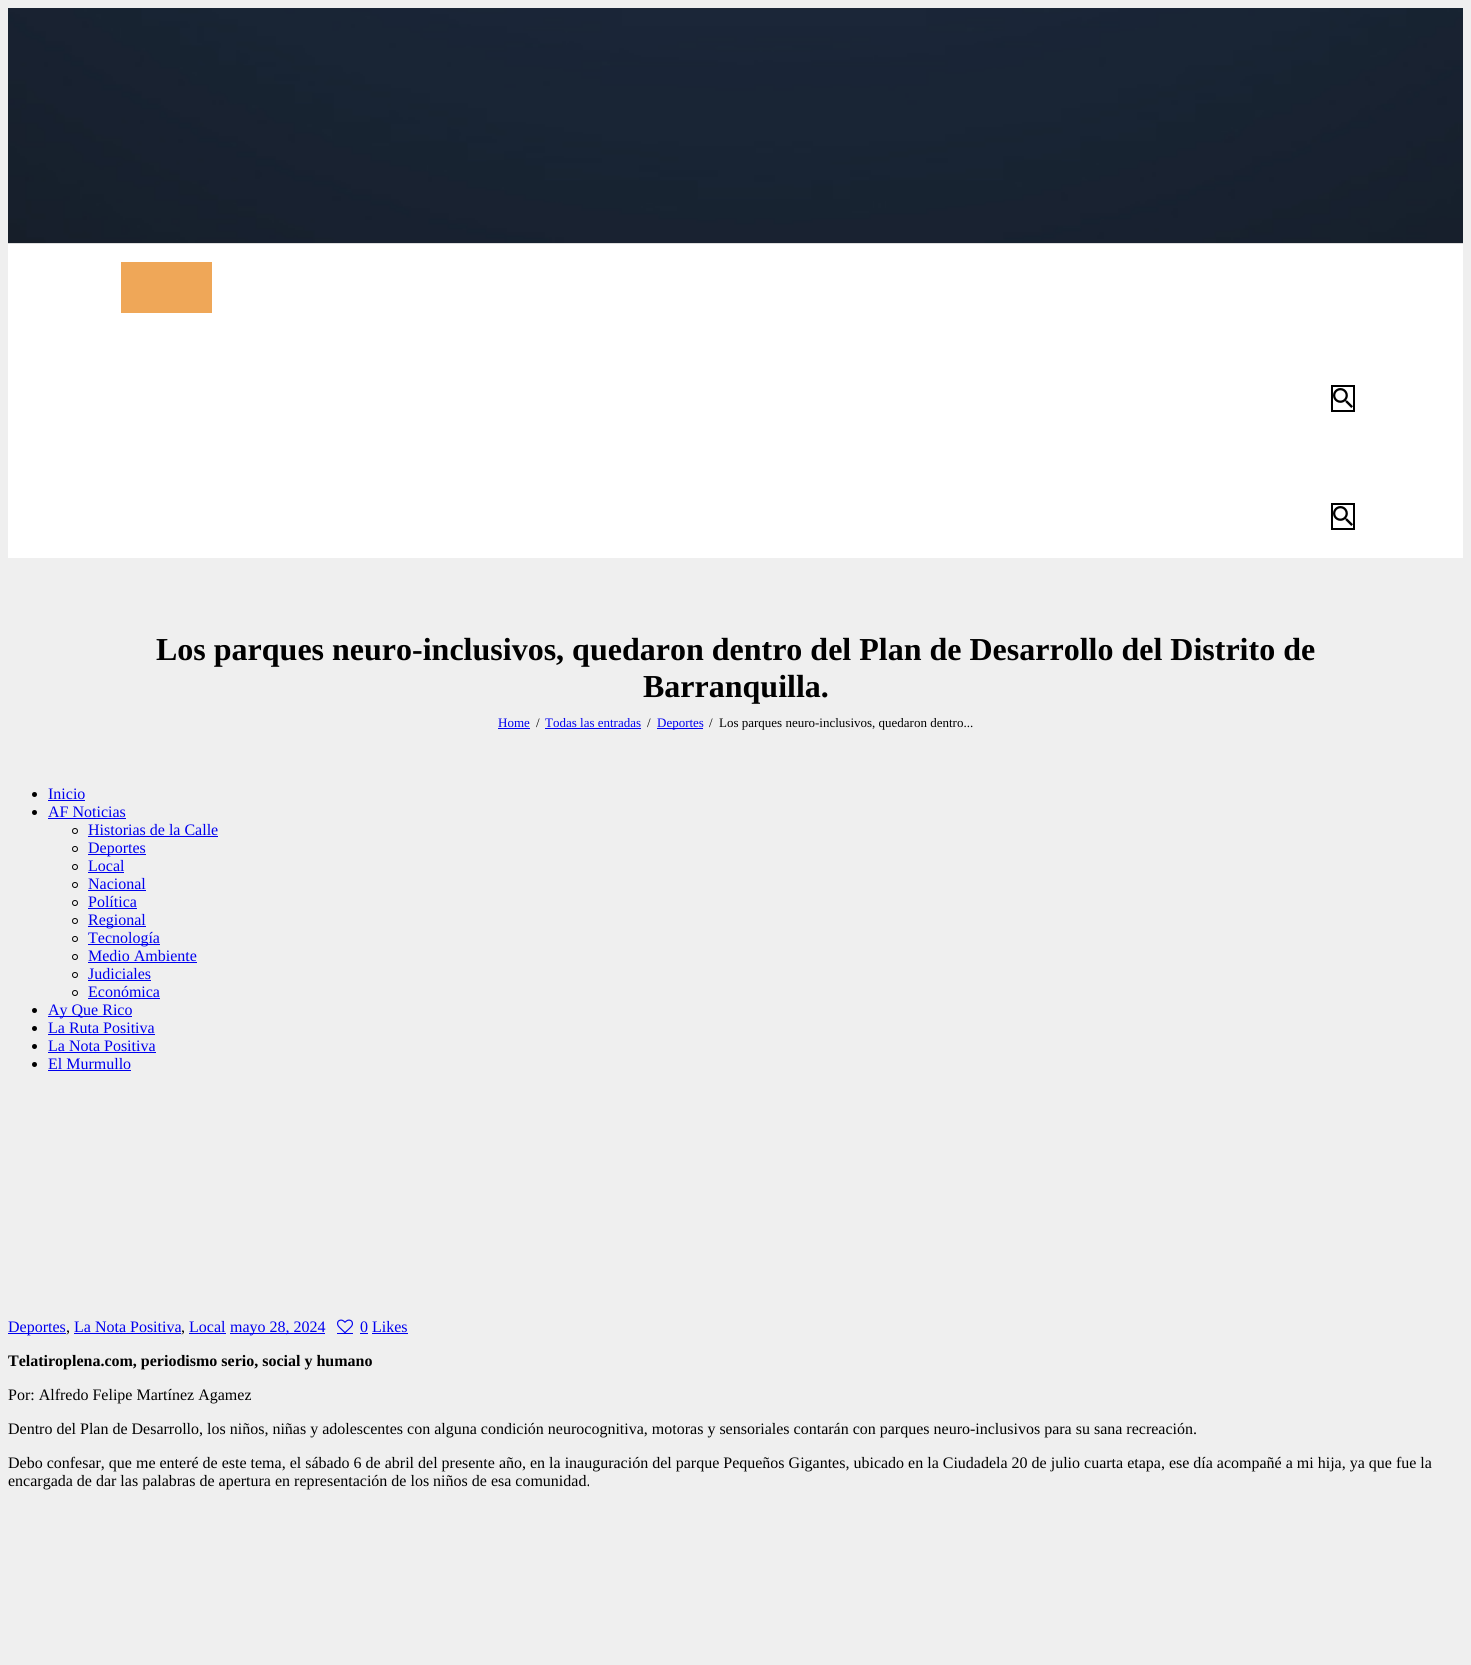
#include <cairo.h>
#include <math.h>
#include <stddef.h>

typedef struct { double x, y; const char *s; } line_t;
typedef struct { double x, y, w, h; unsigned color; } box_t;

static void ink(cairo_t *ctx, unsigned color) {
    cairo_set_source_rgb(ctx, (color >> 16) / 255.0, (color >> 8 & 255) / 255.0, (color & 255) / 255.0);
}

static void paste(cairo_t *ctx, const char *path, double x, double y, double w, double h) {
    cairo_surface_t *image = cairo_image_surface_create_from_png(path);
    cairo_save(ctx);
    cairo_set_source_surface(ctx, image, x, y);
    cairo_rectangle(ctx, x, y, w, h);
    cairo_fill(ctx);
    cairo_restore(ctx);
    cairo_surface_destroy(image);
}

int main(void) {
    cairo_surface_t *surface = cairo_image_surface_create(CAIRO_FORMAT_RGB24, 1471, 1665);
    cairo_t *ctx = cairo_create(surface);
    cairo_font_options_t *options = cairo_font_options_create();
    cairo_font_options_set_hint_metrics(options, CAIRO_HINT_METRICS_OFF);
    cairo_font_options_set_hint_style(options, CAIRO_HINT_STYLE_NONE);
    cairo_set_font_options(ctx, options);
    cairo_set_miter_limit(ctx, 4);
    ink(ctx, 0xEFEFEF);
    cairo_paint(ctx);
    paste(ctx, "media/1.png", 8, 8, 1455, 235);
    {
        static const box_t items[] = {
            {8, 243, 1455, 1, 0xDDDDDD},
            {8, 244, 1455, 314, 0xFFFFFF},
            {121, 262, 91, 51, 0xEFA758},
        };
        for (size_t i = 0; i < sizeof items / sizeof *items; i++) {
            ink(ctx, items[i].color);
            cairo_rectangle(ctx, items[i].x, items[i].y, items[i].w, items[i].h);
            cairo_fill(ctx);
        }
    }
    cairo_rectangle(ctx, 1332, 386, 22, 25);
    ink(ctx, 0x000000);
    cairo_stroke(ctx);
    paste(ctx, "media/2.png", 1333, 388, 20, 20);
    cairo_rectangle(ctx, 1332, 504, 22, 25);
    cairo_stroke(ctx);
    paste(ctx, "media/2.png", 1333, 506, 20, 20);
    cairo_select_font_face(ctx, "Liberation Serif", CAIRO_FONT_SLANT_NORMAL, CAIRO_FONT_WEIGHT_BOLD);
    cairo_set_font_size(ctx, 32);
    cairo_move_to(ctx, 156, 660);
    cairo_show_text(ctx, "Los parques neuro-inclusivos, quedaron dentro del Plan de Desarrollo del Distrito de");
    cairo_move_to(ctx, 643, 697);
    cairo_show_text(ctx, "Barranquilla.");
    cairo_select_font_face(ctx, "Liberation Serif", CAIRO_FONT_SLANT_NORMAL, CAIRO_FONT_WEIGHT_NORMAL);
    cairo_set_font_size(ctx, 13);
    ink(ctx, 0x0000EE);
    cairo_move_to(ctx, 498, 727);
    cairo_show_text(ctx, "Home");
    cairo_rectangle(ctx, 498, 728, 32, 1);
    cairo_fill(ctx);
    ink(ctx, 0x000000);
    cairo_move_to(ctx, 536, 727);
    cairo_show_text(ctx, "/");
    ink(ctx, 0x0000EE);
    cairo_move_to(ctx, 545, 727);
    cairo_show_text(ctx, "Todas las entradas");
    cairo_rectangle(ctx, 545, 728, 96, 1);
    cairo_fill(ctx);
    ink(ctx, 0x000000);
    cairo_move_to(ctx, 647, 727);
    cairo_show_text(ctx, "/");
    ink(ctx, 0x0000EE);
    cairo_rectangle(ctx, 657, 728, 46, 1);
    cairo_fill(ctx);
    cairo_move_to(ctx, 657, 727);
    cairo_show_text(ctx, "Deportes");
    ink(ctx, 0x000000);
    cairo_move_to(ctx, 709, 727);
    cairo_show_text(ctx, "/");
    cairo_move_to(ctx, 719, 727);
    cairo_show_text(ctx, "Los parques neuro-inclusivos, quedaron dentro...");
    cairo_new_path(ctx);
    cairo_arc(ctx, 34.5, 794.5, 2.5, 0, 2 * M_PI);
    cairo_fill(ctx);
    cairo_set_font_size(ctx, 16);
    ink(ctx, 0x0000EE);
    cairo_move_to(ctx, 48, 799);
    cairo_show_text(ctx, "Inicio");
    cairo_rectangle(ctx, 48, 800, 37, 1);
    cairo_fill(ctx);
    ink(ctx, 0x000000);
    cairo_arc(ctx, 34.5, 812.5, 2.5, 0, 2 * M_PI);
    cairo_fill(ctx);
    ink(ctx, 0x0000EE);
    cairo_move_to(ctx, 48, 817);
    cairo_show_text(ctx, "AF Noticias");
    cairo_rectangle(ctx, 48, 818, 78, 1);
    cairo_fill(ctx);
    cairo_arc(ctx, 75, 831, 2.5, 0, 2 * M_PI);
    ink(ctx, 0x000000);
    cairo_set_line_width(ctx, 1);
    cairo_stroke(ctx);
    ink(ctx, 0x0000EE);
    cairo_move_to(ctx, 88, 835);
    cairo_show_text(ctx, "Historias de la Calle");
    cairo_rectangle(ctx, 88, 836, 130, 1);
    cairo_fill(ctx);
    cairo_arc(ctx, 75, 849, 2.5, 0, 2 * M_PI);
    ink(ctx, 0x000000);
    cairo_stroke(ctx);
    ink(ctx, 0x0000EE);
    cairo_rectangle(ctx, 88, 854, 58, 1);
    cairo_fill(ctx);
    cairo_move_to(ctx, 88, 853);
    cairo_show_text(ctx, "Deportes");
    cairo_new_path(ctx);
    cairo_arc(ctx, 75, 867, 2.5, 0, 2 * M_PI);
    ink(ctx, 0x000000);
    cairo_stroke(ctx);
    ink(ctx, 0x0000EE);
    cairo_move_to(ctx, 88, 871);
    cairo_show_text(ctx, "Local");
    cairo_rectangle(ctx, 88, 872, 36, 1);
    cairo_fill(ctx);
    cairo_arc(ctx, 75, 885, 2.5, 0, 2 * M_PI);
    ink(ctx, 0x000000);
    cairo_stroke(ctx);
    ink(ctx, 0x0000EE);
    cairo_move_to(ctx, 88, 889);
    cairo_show_text(ctx, "Nacional");
    cairo_rectangle(ctx, 88, 890, 58, 1);
    cairo_fill(ctx);
    cairo_arc(ctx, 75, 903, 2.5, 0, 2 * M_PI);
    ink(ctx, 0x000000);
    cairo_stroke(ctx);
    ink(ctx, 0x0000EE);
    cairo_move_to(ctx, 88, 907);
    cairo_show_text(ctx, "Política");
    cairo_rectangle(ctx, 88, 908, 49, 1);
    cairo_fill(ctx);
    cairo_arc(ctx, 75, 921, 2.5, 0, 2 * M_PI);
    ink(ctx, 0x000000);
    cairo_stroke(ctx);
    ink(ctx, 0x0000EE);
    cairo_rectangle(ctx, 88, 926, 58, 1);
    cairo_fill(ctx);
    cairo_move_to(ctx, 88, 925);
    cairo_show_text(ctx, "Regional");
    cairo_new_path(ctx);
    cairo_arc(ctx, 75, 939, 2.5, 0, 2 * M_PI);
    ink(ctx, 0x000000);
    cairo_stroke(ctx);
    ink(ctx, 0x0000EE);
    cairo_rectangle(ctx, 88, 944, 72, 1);
    cairo_fill(ctx);
    cairo_move_to(ctx, 88, 943);
    cairo_show_text(ctx, "Tecnología");
    cairo_new_path(ctx);
    cairo_arc(ctx, 75, 957, 2.5, 0, 2 * M_PI);
    ink(ctx, 0x000000);
    cairo_stroke(ctx);
    ink(ctx, 0x0000EE);
    cairo_move_to(ctx, 88, 961);
    cairo_show_text(ctx, "Medio Ambiente");
    cairo_rectangle(ctx, 88, 962, 109, 1);
    cairo_fill(ctx);
    cairo_arc(ctx, 75, 975, 2.5, 0, 2 * M_PI);
    ink(ctx, 0x000000);
    cairo_stroke(ctx);
    ink(ctx, 0x0000EE);
    cairo_move_to(ctx, 88, 979);
    cairo_show_text(ctx, "Judiciales");
    cairo_rectangle(ctx, 88, 980, 63, 1);
    cairo_fill(ctx);
    cairo_arc(ctx, 75, 993, 2.5, 0, 2 * M_PI);
    ink(ctx, 0x000000);
    cairo_stroke(ctx);
    ink(ctx, 0x0000EE);
    cairo_move_to(ctx, 88, 997);
    cairo_show_text(ctx, "Económica");
    cairo_rectangle(ctx, 88, 998, 72, 1);
    cairo_fill(ctx);
    ink(ctx, 0x000000);
    cairo_arc(ctx, 34.5, 1010.5, 2.5, 0, 2 * M_PI);
    cairo_fill(ctx);
    ink(ctx, 0x0000EE);
    cairo_rectangle(ctx, 48, 1016, 84, 1);
    cairo_fill(ctx);
    cairo_move_to(ctx, 48, 1015);
    cairo_show_text(ctx, "Ay Que Rico");
    ink(ctx, 0x000000);
    cairo_new_path(ctx);
    cairo_arc(ctx, 34.5, 1028.5, 2.5, 0, 2 * M_PI);
    cairo_fill(ctx);
    ink(ctx, 0x0000EE);
    cairo_move_to(ctx, 48, 1033);
    cairo_show_text(ctx, "La Ruta Positiva");
    cairo_rectangle(ctx, 48, 1034, 107, 1);
    cairo_fill(ctx);
    ink(ctx, 0x000000);
    cairo_arc(ctx, 34.5, 1046.5, 2.5, 0, 2 * M_PI);
    cairo_fill(ctx);
    ink(ctx, 0x0000EE);
    cairo_move_to(ctx, 48, 1051);
    cairo_show_text(ctx, "La Nota Positiva");
    cairo_rectangle(ctx, 48, 1052, 108, 1);
    cairo_fill(ctx);
    ink(ctx, 0x000000);
    cairo_arc(ctx, 34.5, 1064.5, 2.5, 0, 2 * M_PI);
    cairo_fill(ctx);
    ink(ctx, 0x0000EE);
    cairo_move_to(ctx, 48, 1069);
    cairo_show_text(ctx, "El Murmullo");
    cairo_rectangle(ctx, 48, 1070, 83, 1);
    cairo_fill(ctx);
    cairo_rectangle(ctx, 8, 1333, 58, 1);
    cairo_fill(ctx);
    cairo_move_to(ctx, 8, 1332);
    cairo_show_text(ctx, "Deportes");
    ink(ctx, 0x000000);
    cairo_move_to(ctx, 66, 1332);
    cairo_show_text(ctx, ",");
    ink(ctx, 0x0000EE);
    cairo_move_to(ctx, 74, 1332);
    cairo_show_text(ctx, "La Nota Positiva");
    ink(ctx, 0x000000);
    cairo_move_to(ctx, 181, 1332);
    cairo_show_text(ctx, ",");
    ink(ctx, 0x0000EE);
    cairo_rectangle(ctx, 74, 1333, 107, 1);
    cairo_fill(ctx);
    cairo_rectangle(ctx, 189, 1333, 37, 1);
    cairo_fill(ctx);
    cairo_move_to(ctx, 189, 1332);
    cairo_show_text(ctx, "Local");
    cairo_rectangle(ctx, 230, 1333, 95, 1);
    cairo_fill(ctx);
    cairo_move_to(ctx, 230, 1332);
    cairo_show_text(ctx, "mayo 28, 2024");
    cairo_rectangle(ctx, 337, 1333, 16, 1);
    cairo_fill(ctx);
    paste(ctx, "media/3.png", 337, 1319, 16, 14);
    cairo_move_to(ctx, 360, 1332);
    cairo_show_text(ctx, "0 Likes");
    cairo_rectangle(ctx, 360, 1333, 8, 1);
    cairo_fill(ctx);
    cairo_rectangle(ctx, 372, 1333, 36, 1);
    cairo_fill(ctx);
    cairo_select_font_face(ctx, "Liberation Serif", CAIRO_FONT_SLANT_NORMAL, CAIRO_FONT_WEIGHT_BOLD);
    ink(ctx, 0x000000);
    cairo_move_to(ctx, 8, 1366);
    cairo_show_text(ctx, "Telatiroplena.com, periodismo serio, social y humano");
    cairo_select_font_face(ctx, "Liberation Serif", CAIRO_FONT_SLANT_NORMAL, CAIRO_FONT_WEIGHT_NORMAL);
    {
        static const line_t items[] = {
            {8, 1400, "Por: Alfredo Felipe Martínez Agamez"},
            {8, 1434, "Dentro del Plan de Desarrollo, los niños, niñas y adolescentes con alguna condición neurocognitiva, motoras y sensoriales contarán con parques neuro-inclusivos para su sana recreación."},
            {8, 1468, "Debo confesar, que me enteré de este tema, el sábado 6 de abril del presente año, en la inauguración del parque Pequeños Gigantes, ubicado en la Ciudadela 20 de julio cuarta etapa, ese día acompañé a mi hija, ya que fue la"},
            {8, 1486, "encargada de dar las palabras de apertura en representación de los niños de esa comunidad."},
        };
        for (size_t i = 0; i < sizeof items / sizeof *items; i++) {
            cairo_move_to(ctx, items[i].x, items[i].y);
            cairo_show_text(ctx, items[i].s);
        }
    }
    cairo_surface_write_to_png(surface, "image.png");
    cairo_font_options_destroy(options);
    cairo_destroy(ctx);
    cairo_surface_destroy(surface);
    return 0;
}
